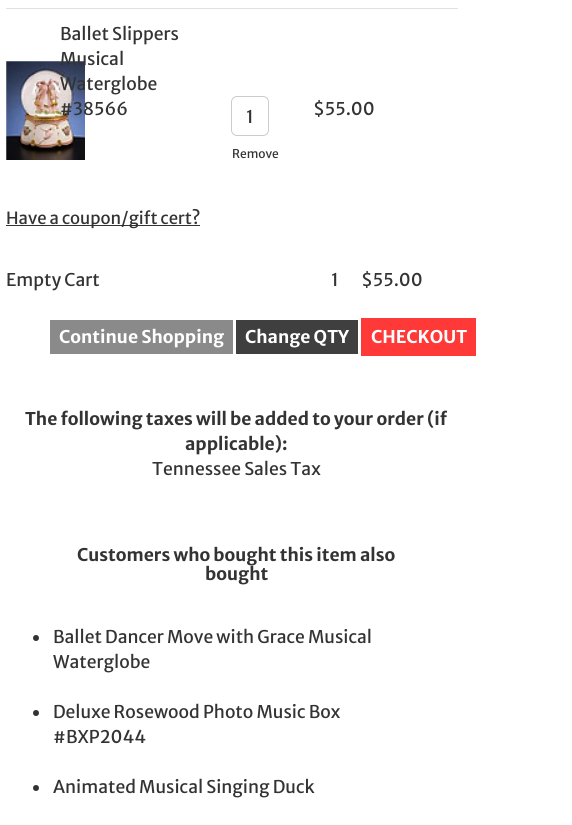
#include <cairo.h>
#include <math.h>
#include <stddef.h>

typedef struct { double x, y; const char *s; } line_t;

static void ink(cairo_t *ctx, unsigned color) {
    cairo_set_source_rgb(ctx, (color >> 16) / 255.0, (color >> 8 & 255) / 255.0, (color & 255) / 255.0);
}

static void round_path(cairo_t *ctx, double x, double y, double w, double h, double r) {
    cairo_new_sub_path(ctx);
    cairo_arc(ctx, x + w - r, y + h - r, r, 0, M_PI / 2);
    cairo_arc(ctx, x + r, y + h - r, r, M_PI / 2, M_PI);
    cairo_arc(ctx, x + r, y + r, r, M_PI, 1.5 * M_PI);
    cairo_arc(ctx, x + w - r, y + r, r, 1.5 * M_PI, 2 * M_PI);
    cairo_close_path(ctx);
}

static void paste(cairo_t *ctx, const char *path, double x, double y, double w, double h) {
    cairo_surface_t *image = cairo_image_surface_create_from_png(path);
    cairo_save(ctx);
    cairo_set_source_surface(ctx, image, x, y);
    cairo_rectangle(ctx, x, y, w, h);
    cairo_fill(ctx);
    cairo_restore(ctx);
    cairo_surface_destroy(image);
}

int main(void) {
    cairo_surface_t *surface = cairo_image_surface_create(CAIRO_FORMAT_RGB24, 572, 825);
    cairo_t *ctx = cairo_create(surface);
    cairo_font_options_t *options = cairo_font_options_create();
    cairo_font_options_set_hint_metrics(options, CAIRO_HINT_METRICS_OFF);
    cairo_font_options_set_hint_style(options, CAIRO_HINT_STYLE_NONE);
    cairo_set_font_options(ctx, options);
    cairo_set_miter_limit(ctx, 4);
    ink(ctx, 0xFFFFFF);
    cairo_paint(ctx);
    ink(ctx, 0xE0E0E0);
    cairo_rectangle(ctx, 6, 8, 452, 1);
    cairo_fill(ctx);
    paste(ctx, "media/1.png", 6, 61, 79, 99);
    cairo_select_font_face(ctx, "Merriweather Sans", CAIRO_FONT_SLANT_NORMAL, CAIRO_FONT_WEIGHT_NORMAL);
    cairo_set_font_size(ctx, 17.5);
    ink(ctx, 0x333333);
    {
        static const line_t items[] = {
            {60, 40, "Ballet Slippers"},
            {60, 65, "Musical"},
            {60, 90, "Waterglobe"},
            {60, 115, "#38566"},
        };
        for (size_t i = 0; i < sizeof items / sizeof *items; i++) {
            cairo_move_to(ctx, items[i].x, items[i].y);
            cairo_show_text(ctx, items[i].s);
        }
    }
    round_path(ctx, 231.5, 96.5, 37, 39, 5.5);
    ink(ctx, 0xCCCCCC);
    cairo_set_line_width(ctx, 1);
    cairo_stroke(ctx);
    ink(ctx, 0x333333);
    cairo_move_to(ctx, 246, 123);
    cairo_show_text(ctx, "1");
    cairo_set_font_size(ctx, 12);
    cairo_move_to(ctx, 232, 158);
    cairo_show_text(ctx, "Remove");
    cairo_set_font_size(ctx, 17.5);
    cairo_move_to(ctx, 313, 115);
    cairo_show_text(ctx, "$55.00");
    cairo_rectangle(ctx, 6, 225, 194, 1);
    cairo_fill(ctx);
    cairo_set_font_size(ctx, 16.75);
    cairo_move_to(ctx, 6, 224);
    cairo_show_text(ctx, "Have a coupon/gift cert?");
    cairo_set_font_size(ctx, 17.5);
    {
        static const line_t items[] = {
            {6, 286, "Empty Cart"},
            {331, 286, "1"},
            {361, 286, "$55.00"},
        };
        for (size_t i = 0; i < sizeof items / sizeof *items; i++) {
            cairo_move_to(ctx, items[i].x, items[i].y);
            cairo_show_text(ctx, items[i].s);
        }
    }
    ink(ctx, 0x8A8A8A);
    cairo_rectangle(ctx, 50, 320, 183, 34);
    cairo_fill(ctx);
    cairo_select_font_face(ctx, "Merriweather Sans", CAIRO_FONT_SLANT_NORMAL, CAIRO_FONT_WEIGHT_BOLD);
    ink(ctx, 0xFFFFFF);
    cairo_move_to(ctx, 59, 343);
    cairo_show_text(ctx, "Continue Shopping");
    ink(ctx, 0x3F3F3F);
    cairo_rectangle(ctx, 236, 320, 122, 34);
    cairo_fill(ctx);
    ink(ctx, 0xFFFFFF);
    cairo_move_to(ctx, 245, 343);
    cairo_show_text(ctx, "Change QTY");
    ink(ctx, 0xFF3838);
    cairo_rectangle(ctx, 361, 318, 115, 38);
    cairo_fill(ctx);
    ink(ctx, 0xFFFFFF);
    cairo_move_to(ctx, 371, 343);
    cairo_show_text(ctx, "CHECKOUT");
    ink(ctx, 0x333333);
    cairo_move_to(ctx, 25, 425);
    cairo_show_text(ctx, "The following taxes will be added to your order (if");
    cairo_move_to(ctx, 185, 450);
    cairo_show_text(ctx, "applicable):");
    cairo_select_font_face(ctx, "Merriweather Sans", CAIRO_FONT_SLANT_NORMAL, CAIRO_FONT_WEIGHT_NORMAL);
    cairo_move_to(ctx, 152, 475);
    cairo_show_text(ctx, "Tennessee Sales Tax");
    cairo_select_font_face(ctx, "Merriweather Sans", CAIRO_FONT_SLANT_NORMAL, CAIRO_FONT_WEIGHT_BOLD);
    cairo_move_to(ctx, 77, 561);
    cairo_show_text(ctx, "Customers who bought this item also");
    cairo_move_to(ctx, 205, 580);
    cairo_show_text(ctx, "bought");
    cairo_new_path(ctx);
    cairo_arc(ctx, 36, 638, 3, 0, 2 * M_PI);
    cairo_fill(ctx);
    cairo_select_font_face(ctx, "Merriweather Sans", CAIRO_FONT_SLANT_NORMAL, CAIRO_FONT_WEIGHT_NORMAL);
    cairo_move_to(ctx, 53, 643);
    cairo_show_text(ctx, "Ballet Dancer Move with Grace Musical");
    cairo_move_to(ctx, 53, 668);
    cairo_show_text(ctx, "Waterglobe");
    cairo_new_path(ctx);
    cairo_arc(ctx, 36, 713, 3, 0, 2 * M_PI);
    cairo_fill(ctx);
    cairo_move_to(ctx, 53, 718);
    cairo_show_text(ctx, "Deluxe Rosewood Photo Music Box");
    cairo_move_to(ctx, 53, 743);
    cairo_show_text(ctx, "#BXP2044");
    cairo_new_path(ctx);
    cairo_arc(ctx, 36, 788, 3, 0, 2 * M_PI);
    cairo_fill(ctx);
    cairo_move_to(ctx, 53, 793);
    cairo_show_text(ctx, "Animated Musical Singing Duck");
    cairo_surface_write_to_png(surface, "image.png");
    cairo_font_options_destroy(options);
    cairo_destroy(ctx);
    cairo_surface_destroy(surface);
    return 0;
}
